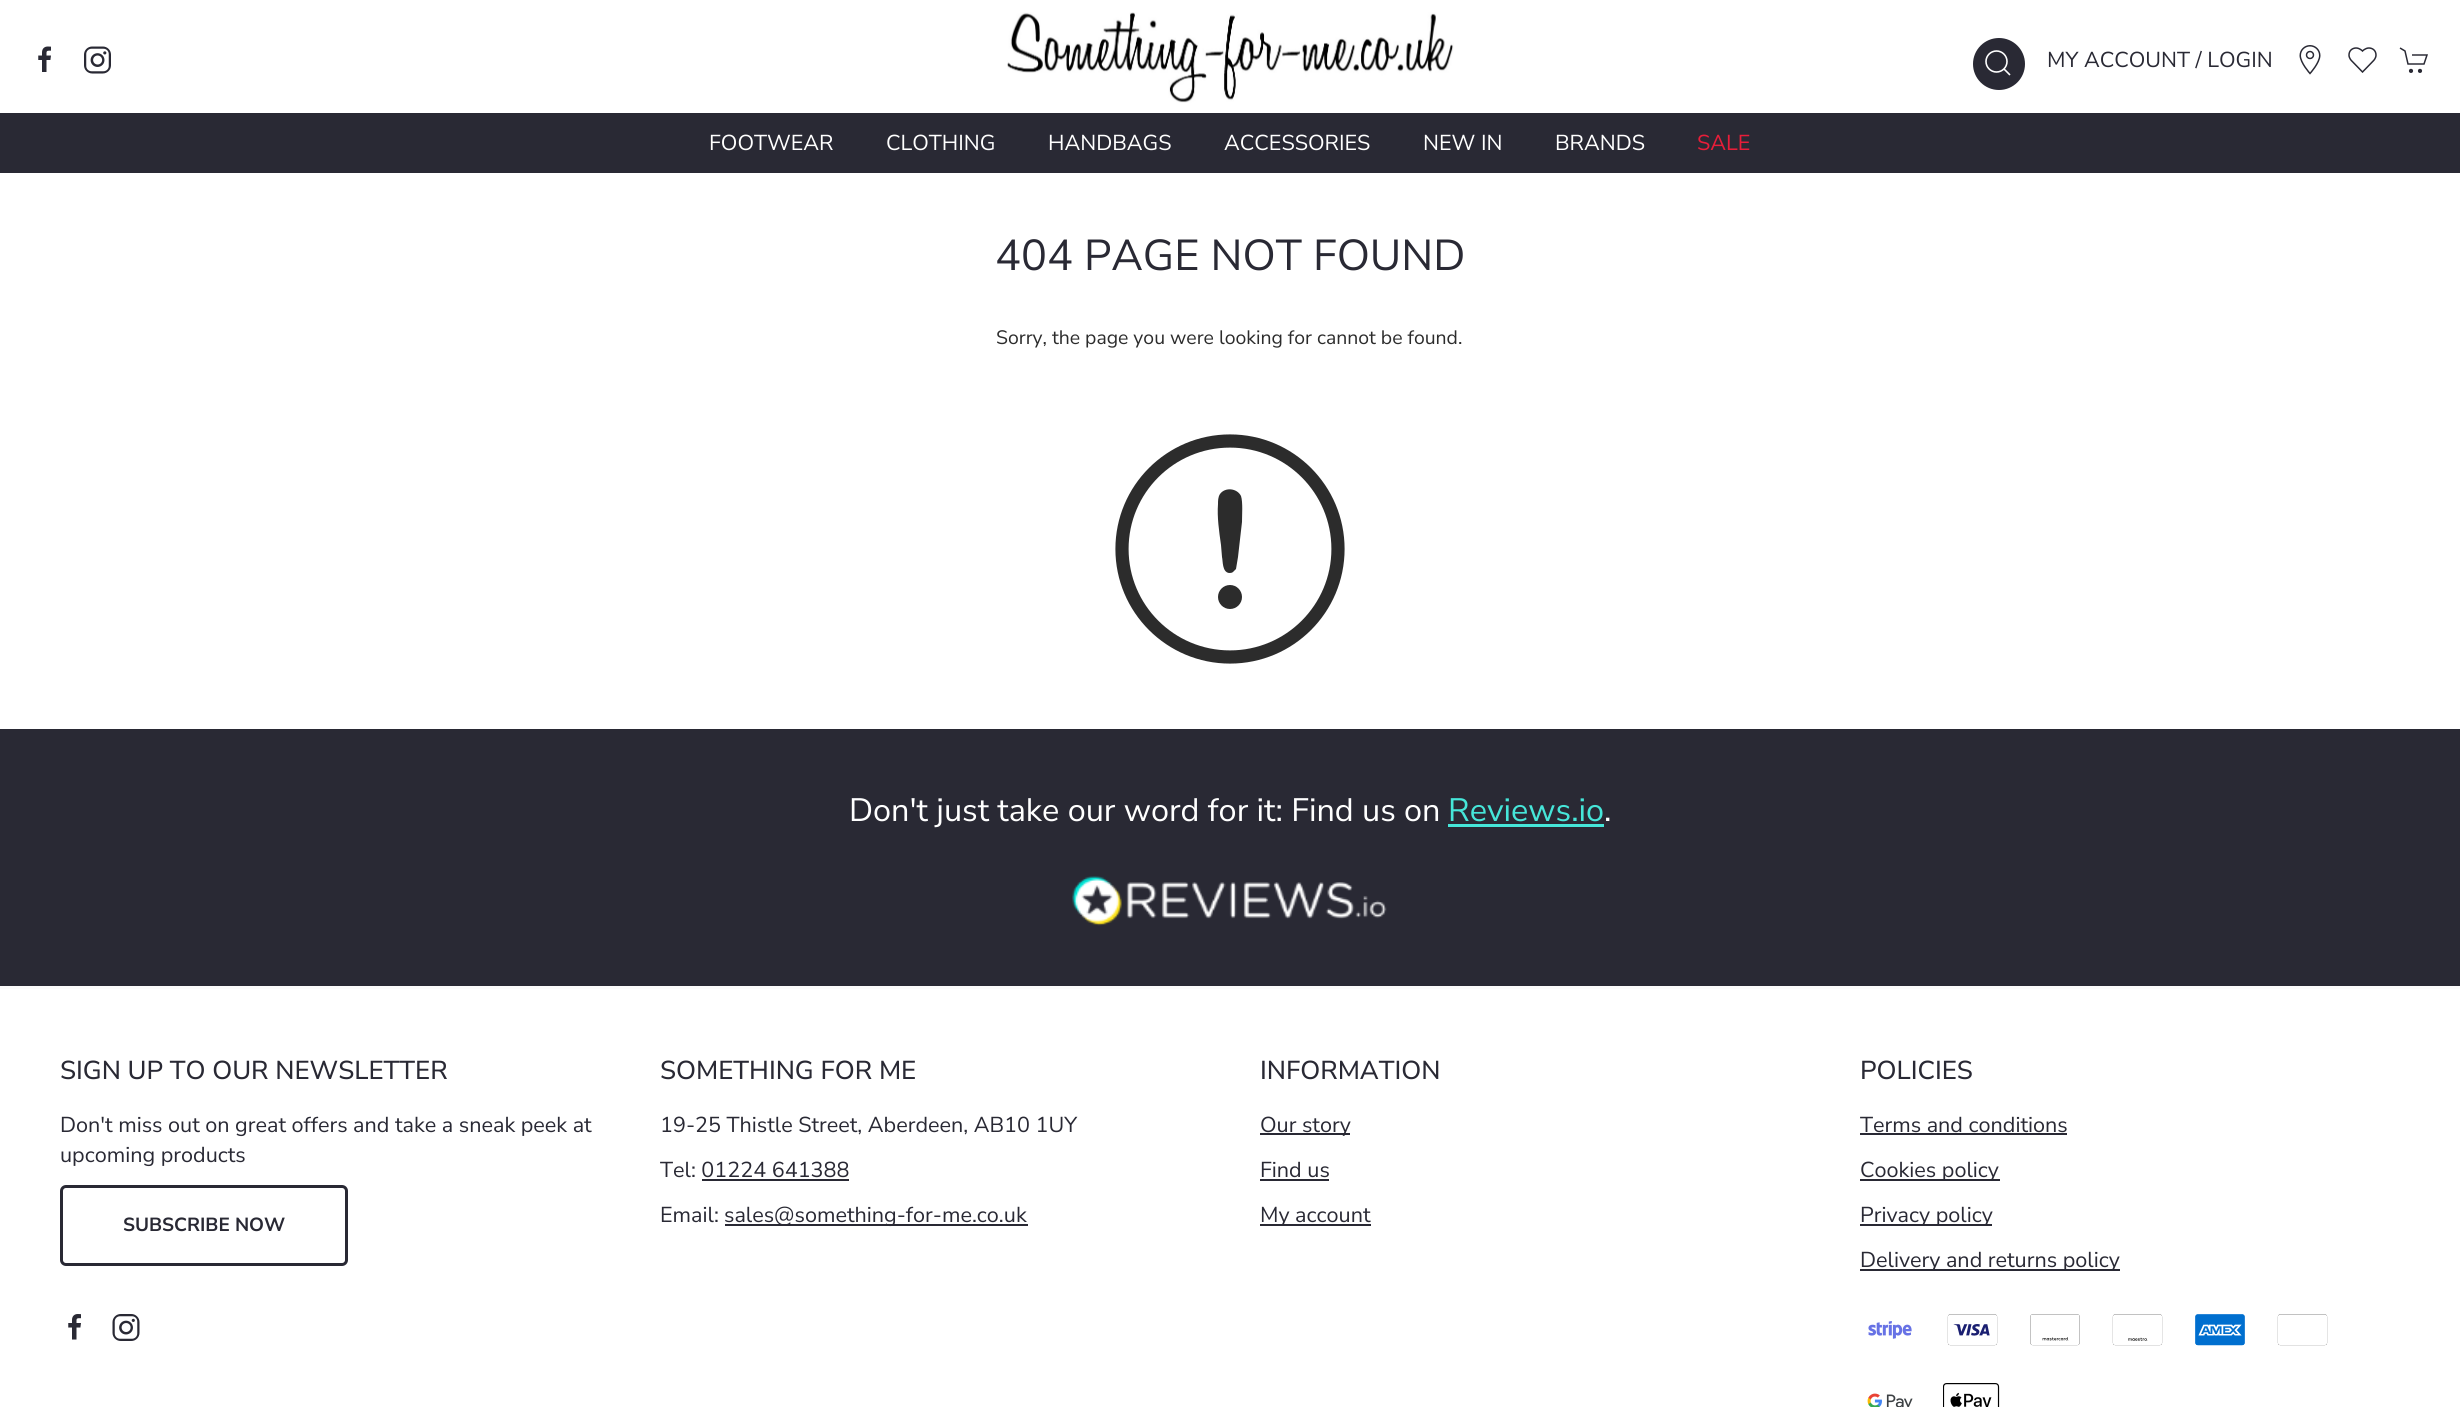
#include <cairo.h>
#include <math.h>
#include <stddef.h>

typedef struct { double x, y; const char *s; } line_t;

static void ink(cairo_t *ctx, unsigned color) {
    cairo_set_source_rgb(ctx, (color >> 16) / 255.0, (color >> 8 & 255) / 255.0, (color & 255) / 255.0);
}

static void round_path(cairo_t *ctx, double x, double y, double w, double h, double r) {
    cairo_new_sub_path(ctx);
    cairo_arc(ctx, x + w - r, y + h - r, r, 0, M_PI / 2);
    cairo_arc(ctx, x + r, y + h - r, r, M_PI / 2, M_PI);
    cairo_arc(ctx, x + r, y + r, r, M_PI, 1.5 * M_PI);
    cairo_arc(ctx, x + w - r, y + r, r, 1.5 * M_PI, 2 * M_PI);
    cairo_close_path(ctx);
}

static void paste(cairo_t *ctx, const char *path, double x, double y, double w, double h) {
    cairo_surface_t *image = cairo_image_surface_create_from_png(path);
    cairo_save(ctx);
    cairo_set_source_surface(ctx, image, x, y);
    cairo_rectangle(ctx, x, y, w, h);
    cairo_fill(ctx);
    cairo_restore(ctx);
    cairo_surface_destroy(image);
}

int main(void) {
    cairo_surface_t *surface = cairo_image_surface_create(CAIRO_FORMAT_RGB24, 2460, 1407);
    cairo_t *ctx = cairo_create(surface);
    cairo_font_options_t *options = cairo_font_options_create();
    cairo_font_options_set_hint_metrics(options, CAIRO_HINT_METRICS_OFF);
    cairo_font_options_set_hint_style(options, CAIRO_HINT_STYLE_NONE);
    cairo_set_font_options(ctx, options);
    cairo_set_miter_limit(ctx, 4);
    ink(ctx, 0xFFFFFF);
    cairo_paint(ctx);
    ink(ctx, 0x292934);
    cairo_rectangle(ctx, 0, 113, 2460, 60);
    cairo_fill(ctx);
    paste(ctx, "media/1.png", 38, 46, 13, 26);
    paste(ctx, "media/2.png", 84, 46, 27, 28);
    paste(ctx, "media/3.png", 1007, 12, 447, 91);
    cairo_arc(ctx, 1999, 64, 26, 0, 2 * M_PI);
    cairo_fill(ctx);
    cairo_arc(ctx, 1996.5, 61.5, 10.5, 0, 2 * M_PI);
    ink(ctx, 0xFFFFFF);
    cairo_set_line_width(ctx, 1.6);
    cairo_stroke(ctx);
    cairo_new_path(ctx);
    cairo_move_to(ctx, 2004, 69);
    cairo_line_to(ctx, 2010, 75);
    cairo_close_path(ctx);
    cairo_stroke(ctx);
    cairo_select_font_face(ctx, "Nunito Sans", CAIRO_FONT_SLANT_NORMAL, CAIRO_FONT_WEIGHT_NORMAL);
    cairo_set_font_size(ctx, 21.6);
    ink(ctx, 0x292934);
    cairo_move_to(ctx, 2047, 67);
    cairo_show_text(ctx, "MY ACCOUNT / LOGIN");
    paste(ctx, "media/4.png", 2299, 45, 22, 30);
    paste(ctx, "media/5.png", 2348, 47, 29, 26);
    cairo_arc(ctx, 2411, 70.9, 2.1, 0, 2 * M_PI);
    cairo_fill(ctx);
    cairo_arc(ctx, 2420, 70.9, 2.1, 0, 2 * M_PI);
    cairo_fill(ctx);
    cairo_new_path(ctx);
    cairo_move_to(ctx, 2400, 48);
    cairo_line_to(ctx, 2405, 51);
    cairo_line_to(ctx, 2408, 64);
    cairo_line_to(ctx, 2424, 64);
    cairo_line_to(ctx, 2427, 55);
    cairo_line_to(ctx, 2412, 55);
    cairo_set_line_width(ctx, 1.5);
    cairo_stroke(ctx);
    ink(ctx, 0xFFFFFF);
    {
        static const line_t items[] = {
            {709, 150, "FOOTWEAR"},
            {886, 150, "CLOTHING"},
            {1048, 150, "HANDBAGS"},
            {1224, 150, "ACCESSORIES"},
            {1423, 150, "NEW IN"},
            {1555, 150, "BRANDS"},
        };
        for (size_t i = 0; i < sizeof items / sizeof *items; i++) {
            cairo_move_to(ctx, items[i].x, items[i].y);
            cairo_show_text(ctx, items[i].s);
        }
    }
    ink(ctx, 0xE81D39);
    cairo_move_to(ctx, 1697, 150);
    cairo_show_text(ctx, "SALE");
    cairo_set_font_size(ctx, 43.25);
    ink(ctx, 0x292934);
    cairo_move_to(ctx, 995, 270);
    cairo_show_text(ctx, "404 PAGE NOT FOUND");
    cairo_set_font_size(ctx, 19.4);
    ink(ctx, 0x2C2C2C);
    cairo_move_to(ctx, 996, 344);
    cairo_show_text(ctx, "Sorry, the page you were looking for cannot be found.");
    cairo_new_path(ctx);
    cairo_arc(ctx, 1230, 597, 12, 0, 2 * M_PI);
    cairo_fill(ctx);
    cairo_arc(ctx, 1230, 549, 108, 0, 2 * M_PI);
    cairo_set_line_width(ctx, 13.2);
    cairo_stroke(ctx);
    cairo_new_path(ctx);
    cairo_move_to(ctx, 1242, 522);
    cairo_line_to(ctx, 1238, 557);
    cairo_line_to(ctx, 1236, 569);
    cairo_line_to(ctx, 1233, 572);
    cairo_curve_to(ctx, 1232, 573, 1230, 573, 1229, 573);
    cairo_curve_to(ctx, 1222, 572, 1223, 561, 1222, 557);
    cairo_line_to(ctx, 1221, 545);
    cairo_curve_to(ctx, 1219, 531, 1217, 517, 1218, 504);
    cairo_curve_to(ctx, 1218, 501, 1218, 497, 1220, 494);
    cairo_curve_to(ctx, 1225, 487, 1237, 488, 1241, 496);
    cairo_curve_to(ctx, 1243, 502, 1242, 516, 1242, 522);
    cairo_close_path(ctx);
    cairo_fill(ctx);
    ink(ctx, 0x292934);
    cairo_rectangle(ctx, 0, 729, 2460, 257);
    cairo_fill(ctx);
    cairo_set_font_size(ctx, 32.4);
    ink(ctx, 0xFFFFFF);
    cairo_move_to(ctx, 849, 821);
    cairo_show_text(ctx, "Don't just take our word for it: Find us on");
    ink(ctx, 0x46E6D9);
    cairo_move_to(ctx, 1448, 821);
    cairo_show_text(ctx, "Reviews.io");
    cairo_rectangle(ctx, 1448, 824, 156, 3);
    cairo_fill(ctx);
    ink(ctx, 0xFFFFFF);
    cairo_move_to(ctx, 1604, 821);
    cairo_show_text(ctx, ".");
    paste(ctx, "media/6.png", 1072, 876, 315, 50);
    ink(ctx, 0xFBFBFB);
    cairo_rectangle(ctx, 0, 986, 2460, 3);
    cairo_fill(ctx);
    cairo_select_font_face(ctx, "Nunito Sans Medium", CAIRO_FONT_SLANT_NORMAL, CAIRO_FONT_WEIGHT_NORMAL);
    cairo_set_font_size(ctx, 25.9);
    ink(ctx, 0x292934);
    cairo_move_to(ctx, 60, 1079);
    cairo_show_text(ctx, "SIGN UP TO OUR NEWSLETTER");
    cairo_select_font_face(ctx, "Nunito Sans", CAIRO_FONT_SLANT_NORMAL, CAIRO_FONT_WEIGHT_NORMAL);
    cairo_set_font_size(ctx, 21.6);
    cairo_move_to(ctx, 60, 1132);
    cairo_show_text(ctx, "Don't miss out on great offers and take a sneak peek at");
    cairo_move_to(ctx, 60, 1162);
    cairo_show_text(ctx, "upcoming products");
    round_path(ctx, 61.5, 1186.5, 285, 78, 4.5);
    cairo_set_line_width(ctx, 3);
    cairo_stroke(ctx);
    cairo_select_font_face(ctx, "Nunito Sans", CAIRO_FONT_SLANT_NORMAL, CAIRO_FONT_WEIGHT_BOLD);
    cairo_set_font_size(ctx, 19);
    cairo_move_to(ctx, 123, 1231);
    cairo_show_text(ctx, "SUBSCRIBE NOW");
    paste(ctx, "media/7.png", 68, 1314, 13, 26);
    paste(ctx, "media/8.png", 112, 1314, 28, 27);
    cairo_select_font_face(ctx, "Nunito Sans Medium", CAIRO_FONT_SLANT_NORMAL, CAIRO_FONT_WEIGHT_NORMAL);
    cairo_set_font_size(ctx, 25.9);
    cairo_move_to(ctx, 660, 1079);
    cairo_show_text(ctx, "SOMETHING FOR ME");
    cairo_select_font_face(ctx, "Nunito Sans", CAIRO_FONT_SLANT_NORMAL, CAIRO_FONT_WEIGHT_NORMAL);
    cairo_set_font_size(ctx, 21.6);
    cairo_move_to(ctx, 660, 1132);
    cairo_show_text(ctx, "19-25 Thistle Street, Aberdeen, AB10 1UY");
    cairo_move_to(ctx, 660, 1177);
    cairo_show_text(ctx, "Tel: 01224 641388");
    cairo_rectangle(ctx, 702, 1179, 147, 2);
    cairo_fill(ctx);
    cairo_move_to(ctx, 660, 1222);
    cairo_show_text(ctx, "Email:");
    cairo_rectangle(ctx, 725, 1224, 303, 2);
    cairo_fill(ctx);
    cairo_move_to(ctx, 724, 1222);
    cairo_show_text(ctx, "sales@something-for-me.co.uk");
    cairo_select_font_face(ctx, "Nunito Sans Medium", CAIRO_FONT_SLANT_NORMAL, CAIRO_FONT_WEIGHT_NORMAL);
    cairo_set_font_size(ctx, 25.9);
    cairo_move_to(ctx, 1260, 1079);
    cairo_show_text(ctx, "INFORMATION");
    cairo_rectangle(ctx, 1260, 1133, 90, 2);
    cairo_fill(ctx);
    cairo_select_font_face(ctx, "Nunito Sans", CAIRO_FONT_SLANT_NORMAL, CAIRO_FONT_WEIGHT_NORMAL);
    cairo_set_font_size(ctx, 21.6);
    cairo_move_to(ctx, 1260, 1132);
    cairo_show_text(ctx, "Our story");
    cairo_move_to(ctx, 1260, 1177);
    cairo_show_text(ctx, "Find us");
    cairo_rectangle(ctx, 1260, 1179, 69, 2);
    cairo_fill(ctx);
    cairo_rectangle(ctx, 1260, 1224, 111, 2);
    cairo_fill(ctx);
    cairo_move_to(ctx, 1260, 1222);
    cairo_show_text(ctx, "My account");
    cairo_select_font_face(ctx, "Nunito Sans Medium", CAIRO_FONT_SLANT_NORMAL, CAIRO_FONT_WEIGHT_NORMAL);
    cairo_set_font_size(ctx, 25.9);
    cairo_move_to(ctx, 1860, 1079);
    cairo_show_text(ctx, "POLICIES");
    cairo_select_font_face(ctx, "Nunito Sans", CAIRO_FONT_SLANT_NORMAL, CAIRO_FONT_WEIGHT_NORMAL);
    cairo_set_font_size(ctx, 21.6);
    cairo_move_to(ctx, 1860, 1132);
    cairo_show_text(ctx, "Terms and conditions");
    cairo_rectangle(ctx, 1860, 1133, 207, 2);
    cairo_fill(ctx);
    cairo_rectangle(ctx, 1860, 1179, 140, 2);
    cairo_fill(ctx);
    cairo_move_to(ctx, 1860, 1177);
    cairo_show_text(ctx, "Cookies policy");
    cairo_rectangle(ctx, 1860, 1224, 132, 2);
    cairo_fill(ctx);
    cairo_move_to(ctx, 1860, 1222);
    cairo_show_text(ctx, "Privacy policy");
    cairo_rectangle(ctx, 1860, 1269, 260, 2);
    cairo_fill(ctx);
    cairo_move_to(ctx, 1860, 1267);
    cairo_show_text(ctx, "Delivery and returns policy");
    paste(ctx, "media/9.png", 1868, 1321, 44, 18);
    paste(ctx, "media/10.png", 1947, 1314, 51, 32);
    paste(ctx, "media/11.png", 2030, 1314, 50, 32);
    paste(ctx, "media/12.png", 2112, 1314, 51, 32);
    paste(ctx, "media/13.png", 2195, 1314, 50, 32);
    paste(ctx, "media/14.png", 2277, 1314, 51, 32);
    paste(ctx, "media/15.png", 1867, 1393, 46, 14);
    paste(ctx, "media/16.png", 1943, 1383, 57, 24);
    cairo_surface_write_to_png(surface, "image.png");
    cairo_font_options_destroy(options);
    cairo_destroy(ctx);
    cairo_surface_destroy(surface);
    return 0;
}
